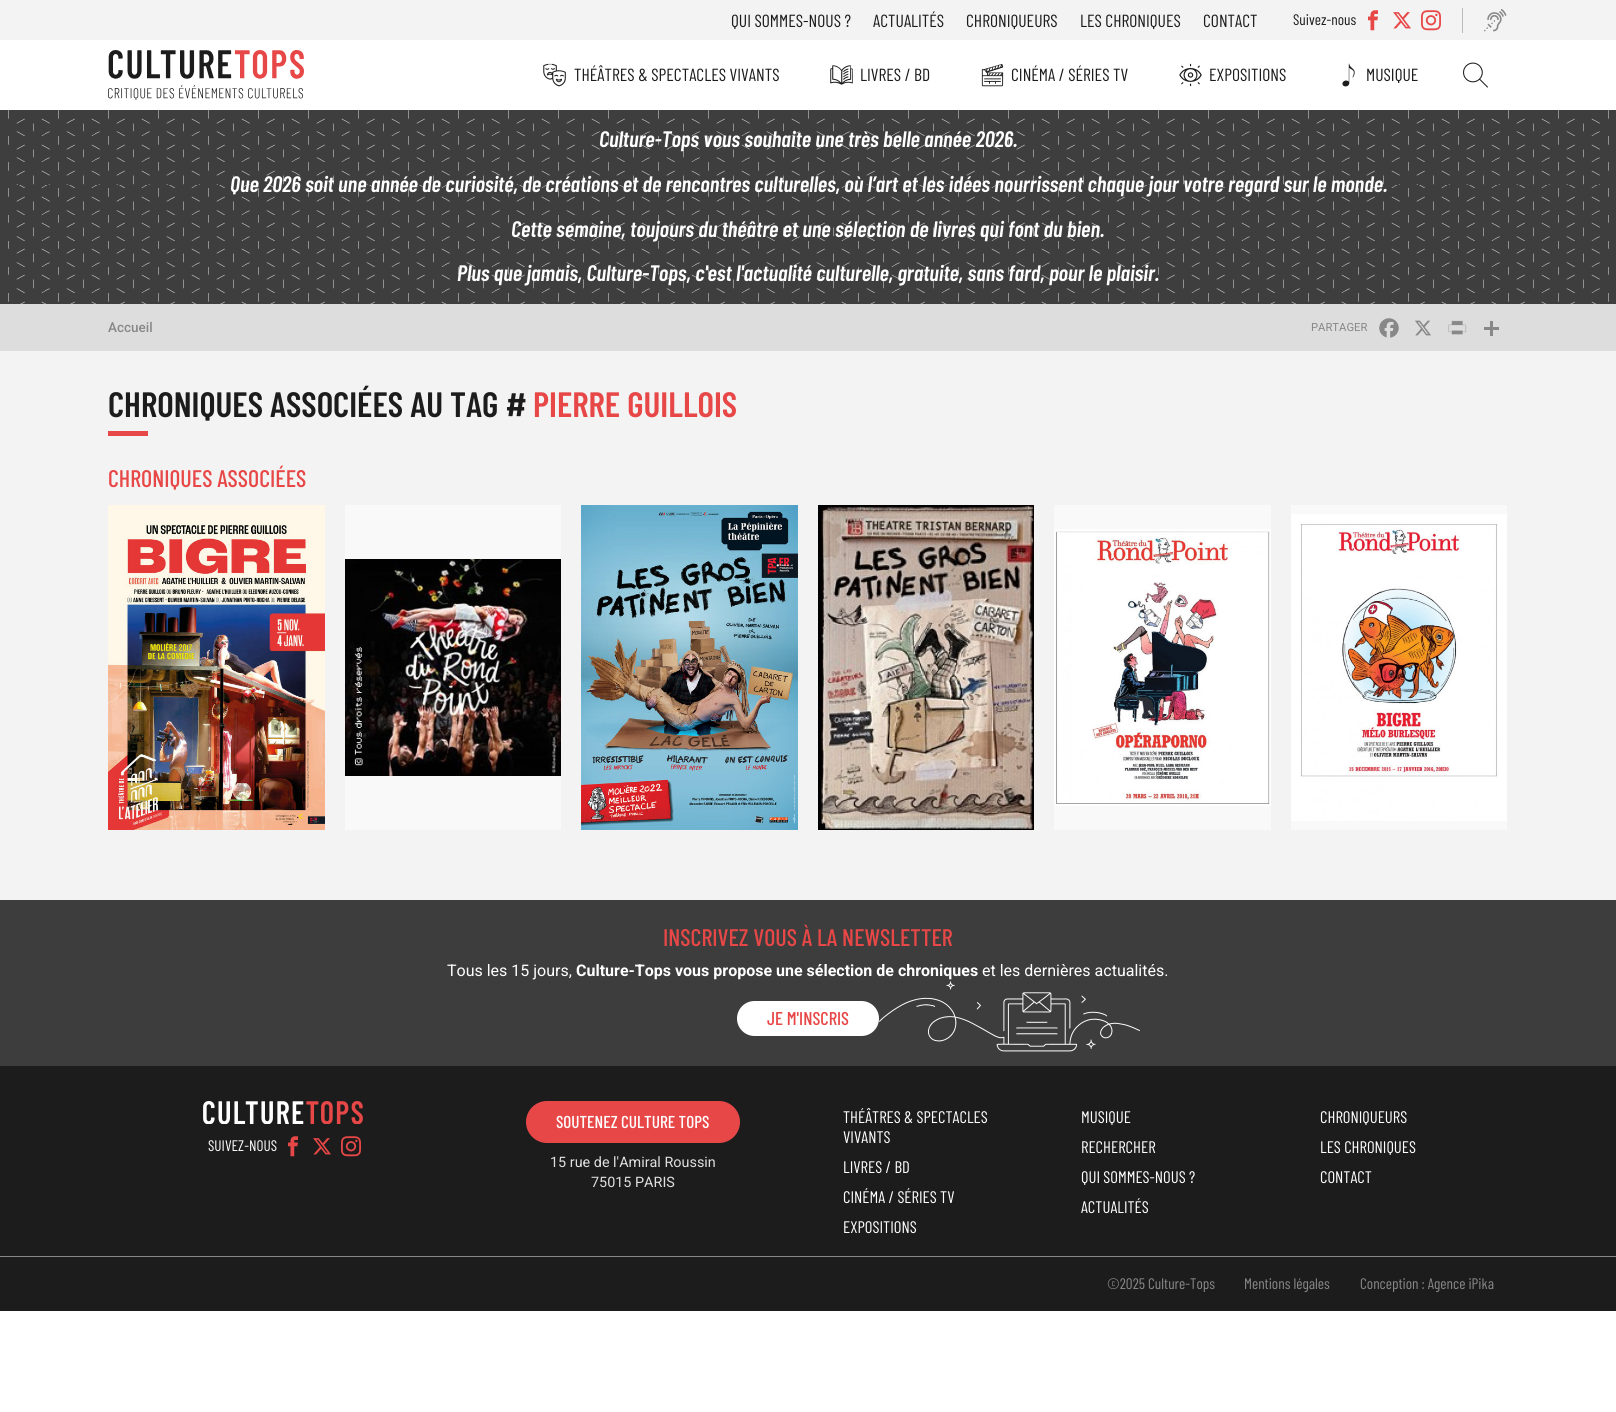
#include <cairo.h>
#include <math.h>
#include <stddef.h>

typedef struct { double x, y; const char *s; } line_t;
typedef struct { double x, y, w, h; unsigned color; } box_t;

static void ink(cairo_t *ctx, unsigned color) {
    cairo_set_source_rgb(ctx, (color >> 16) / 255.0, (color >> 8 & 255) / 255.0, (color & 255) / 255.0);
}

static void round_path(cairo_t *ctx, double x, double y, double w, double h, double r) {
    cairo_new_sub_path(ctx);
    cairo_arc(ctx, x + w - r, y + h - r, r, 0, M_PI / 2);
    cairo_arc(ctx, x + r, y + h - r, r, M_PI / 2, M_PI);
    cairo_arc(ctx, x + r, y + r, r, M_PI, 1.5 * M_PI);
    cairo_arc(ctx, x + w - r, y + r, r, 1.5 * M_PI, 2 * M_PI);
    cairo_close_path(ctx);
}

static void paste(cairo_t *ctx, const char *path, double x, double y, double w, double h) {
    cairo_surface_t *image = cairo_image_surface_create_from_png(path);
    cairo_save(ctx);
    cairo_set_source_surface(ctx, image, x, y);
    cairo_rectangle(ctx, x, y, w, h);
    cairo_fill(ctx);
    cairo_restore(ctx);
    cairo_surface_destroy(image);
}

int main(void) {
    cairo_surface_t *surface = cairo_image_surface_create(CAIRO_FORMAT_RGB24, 1616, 1412);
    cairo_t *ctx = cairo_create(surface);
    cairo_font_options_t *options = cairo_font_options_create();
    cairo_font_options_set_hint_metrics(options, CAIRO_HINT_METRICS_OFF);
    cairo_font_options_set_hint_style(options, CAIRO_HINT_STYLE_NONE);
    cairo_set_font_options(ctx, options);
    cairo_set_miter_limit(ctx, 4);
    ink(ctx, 0xFFFFFF);
    cairo_paint(ctx);
    ink(ctx, 0xF3F3F3);
    cairo_rectangle(ctx, 0, 0, 1616, 40);
    cairo_fill(ctx);
    cairo_select_font_face(ctx, "Barlow Condensed", CAIRO_FONT_SLANT_NORMAL, CAIRO_FONT_WEIGHT_NORMAL);
    cairo_set_font_size(ctx, 17.6);
    ink(ctx, 0x1C1C1C);
    {
        static const line_t items[] = {
            {731, 27, "QUI SOMMES-NOUS ?"},
            {873, 27, "ACTUALITÉS"},
            {966, 27, "CHRONIQUEURS"},
            {1080, 27, "LES CHRONIQUES"},
            {1203, 27, "CONTACT"},
        };
        for (size_t i = 0; i < sizeof items / sizeof *items; i++) {
            cairo_move_to(ctx, items[i].x, items[i].y);
            cairo_show_text(ctx, items[i].s);
        }
    }
    cairo_set_font_size(ctx, 15.25);
    cairo_move_to(ctx, 1293, 25);
    cairo_show_text(ctx, "Suivez-nous");
    paste(ctx, "media/1.png", 1368, 10, 10, 21);
    paste(ctx, "media/2.png", 1393, 12, 18, 17);
    paste(ctx, "media/3.png", 1421, 10, 20, 21);
    ink(ctx, 0xBBBBBB);
    cairo_rectangle(ctx, 1462, 8, 1, 25);
    cairo_fill(ctx);
    paste(ctx, "media/4.png", 1484, 9, 23, 23);
    paste(ctx, "media/5.png", 108, 50, 196, 50);
    paste(ctx, "media/6.png", 543, 63, 23, 24);
    cairo_set_font_size(ctx, 17.6);
    ink(ctx, 0x1C1C1C);
    cairo_move_to(ctx, 574, 81);
    cairo_show_text(ctx, "THÉÂTRES & SPECTACLES VIVANTS");
    paste(ctx, "media/7.png", 830, 65, 23, 20);
    cairo_move_to(ctx, 860, 81);
    cairo_show_text(ctx, "LIVRES / BD");
    paste(ctx, "media/8.png", 981, 64, 23, 23);
    cairo_move_to(ctx, 1011, 81);
    cairo_show_text(ctx, "CINÉMA / SÉRIES TV");
    paste(ctx, "media/9.png", 1179, 63, 23, 24);
    cairo_move_to(ctx, 1209, 81);
    cairo_show_text(ctx, "EXPOSITIONS");
    paste(ctx, "media/10.png", 1342, 63, 13, 24);
    cairo_move_to(ctx, 1366, 81);
    cairo_show_text(ctx, "MUSIQUE");
    paste(ctx, "media/11.png", 1463, 62, 25, 26);
    ink(ctx, 0x3E3E3E);
    cairo_rectangle(ctx, 0, 110, 1616, 194);
    cairo_fill(ctx);
    paste(ctx, "media/12.png", 8, 110, 1601, 194);
    cairo_select_font_face(ctx, "Barlow Condensed SemiBold", CAIRO_FONT_SLANT_ITALIC, CAIRO_FONT_WEIGHT_NORMAL);
    cairo_set_font_size(ctx, 22.4);
    ink(ctx, 0xFFFFFF);
    {
        static const line_t items[] = {
            {599, 147, "Culture-Tops vous souhaite une très belle année 2026."},
            {230, 192, "Que 2026 soit une année de curiosité, de créations et de rencontres culturelles, où l’art et les idées nourrissent chaque jour votre regard sur le monde."},
            {511, 237, "Cette semaine, toujours du théâtre et une sélection de livres qui font du bien."},
            {457, 281, "Plus que jamais, Culture-Tops, c'est l'actualité culturelle, gratuite, sans fard, pour le plaisir."},
        };
        for (size_t i = 0; i < sizeof items / sizeof *items; i++) {
            cairo_move_to(ctx, items[i].x, items[i].y);
            cairo_show_text(ctx, items[i].s);
        }
    }
    ink(ctx, 0xDDDDDD);
    cairo_rectangle(ctx, 0, 304, 1616, 47);
    cairo_fill(ctx);
    cairo_select_font_face(ctx, "Roboto Medium", CAIRO_FONT_SLANT_NORMAL, CAIRO_FONT_WEIGHT_NORMAL);
    cairo_set_font_size(ctx, 13.5);
    ink(ctx, 0x888888);
    cairo_move_to(ctx, 108, 332);
    cairo_show_text(ctx, "Accueil");
    cairo_select_font_face(ctx, "Roboto", CAIRO_FONT_SLANT_NORMAL, CAIRO_FONT_WEIGHT_NORMAL);
    cairo_set_font_size(ctx, 11.25);
    cairo_move_to(ctx, 1311, 331);
    cairo_show_text(ctx, "PARTAGER");
    paste(ctx, "media/13.png", 1379, 318, 20, 20);
    paste(ctx, "media/14.png", 1415, 320, 16, 16);
    paste(ctx, "media/15.png", 1448, 320, 19, 15);
    {
        static const box_t items[] = {
            {1490, 321, 3, 15, 0x888888},
            {1484, 327, 15, 3, 0x888888},
            {0, 351, 1616, 549, 0xF3F3F3},
        };
        for (size_t i = 0; i < sizeof items / sizeof *items; i++) {
            ink(ctx, items[i].color);
            cairo_rectangle(ctx, items[i].x, items[i].y, items[i].w, items[i].h);
            cairo_fill(ctx);
        }
    }
    cairo_select_font_face(ctx, "Barlow Condensed SemiBold", CAIRO_FONT_SLANT_NORMAL, CAIRO_FONT_WEIGHT_NORMAL);
    cairo_set_font_size(ctx, 35.25);
    ink(ctx, 0x1C1C1C);
    cairo_move_to(ctx, 108, 417);
    cairo_show_text(ctx, "CHRONIQUES ASSOCIÉES AU TAG #");
    ink(ctx, 0xE84747);
    cairo_move_to(ctx, 533, 417);
    cairo_show_text(ctx, "PIERRE GUILLOIS");
    cairo_rectangle(ctx, 108, 431, 40, 5);
    cairo_fill(ctx);
    cairo_select_font_face(ctx, "Barlow Condensed Medium", CAIRO_FONT_SLANT_NORMAL, CAIRO_FONT_WEIGHT_NORMAL);
    cairo_set_font_size(ctx, 24);
    cairo_move_to(ctx, 108, 487);
    cairo_show_text(ctx, "CHRONIQUES ASSOCIÉES");
    paste(ctx, "media/16.png", 108, 505, 217, 325);
    ink(ctx, 0xF9F9F9);
    cairo_rectangle(ctx, 345, 505, 216, 325);
    cairo_fill(ctx);
    paste(ctx, "media/17.png", 345, 559, 216, 217);
    paste(ctx, "media/18.png", 581, 505, 217, 325);
    paste(ctx, "media/19.png", 818, 505, 216, 325);
    cairo_rectangle(ctx, 1054, 505, 217, 325);
    cairo_fill(ctx);
    paste(ctx, "media/20.png", 1054, 529, 217, 277);
    cairo_rectangle(ctx, 1291, 505, 216, 325);
    cairo_fill(ctx);
    paste(ctx, "media/21.png", 1291, 514, 216, 307);
    ink(ctx, 0x3D3D3D);
    cairo_rectangle(ctx, 0, 900, 1616, 166);
    cairo_fill(ctx);
    ink(ctx, 0xE84747);
    cairo_move_to(ctx, 663, 946);
    cairo_show_text(ctx, "INSCRIVEZ VOUS À LA NEWSLETTER");
    cairo_select_font_face(ctx, "Roboto", CAIRO_FONT_SLANT_NORMAL, CAIRO_FONT_WEIGHT_NORMAL);
    cairo_set_font_size(ctx, 16);
    ink(ctx, 0xFFFFFF);
    cairo_move_to(ctx, 447, 976);
    cairo_show_text(ctx, "Tous les 15 jours,");
    cairo_select_font_face(ctx, "Roboto", CAIRO_FONT_SLANT_NORMAL, CAIRO_FONT_WEIGHT_BOLD);
    cairo_move_to(ctx, 576, 976);
    cairo_show_text(ctx, "Culture-Tops vous propose une sélection de chroniques");
    cairo_select_font_face(ctx, "Roboto", CAIRO_FONT_SLANT_NORMAL, CAIRO_FONT_WEIGHT_NORMAL);
    cairo_move_to(ctx, 982, 976);
    cairo_show_text(ctx, "et les dernières actualités.");
    round_path(ctx, 737, 1001, 142, 35, 17.5);
    cairo_fill(ctx);
    cairo_select_font_face(ctx, "Barlow Condensed Medium", CAIRO_FONT_SLANT_NORMAL, CAIRO_FONT_WEIGHT_NORMAL);
    cairo_set_font_size(ctx, 18.5);
    ink(ctx, 0xE84747);
    cairo_move_to(ctx, 767, 1025);
    cairo_show_text(ctx, "JE M'INSCRIS");
    paste(ctx, "media/22.png", 879, 981, 261, 71);
    ink(ctx, 0x1C1C1C);
    cairo_rectangle(ctx, 0, 1066, 1616, 245);
    cairo_fill(ctx);
    paste(ctx, "media/23.png", 203, 1101, 160, 23);
    cairo_select_font_face(ctx, "Barlow Condensed", CAIRO_FONT_SLANT_NORMAL, CAIRO_FONT_WEIGHT_NORMAL);
    cairo_set_font_size(ctx, 15.25);
    ink(ctx, 0xFFFFFF);
    cairo_move_to(ctx, 208, 1151);
    cairo_show_text(ctx, "SUIVEZ-NOUS");
    paste(ctx, "media/24.png", 288, 1136, 10, 21);
    paste(ctx, "media/25.png", 313, 1138, 18, 17);
    paste(ctx, "media/26.png", 341, 1136, 20, 21);
    ink(ctx, 0xE84747);
    round_path(ctx, 526, 1101, 214, 42, 21);
    cairo_fill(ctx);
    cairo_select_font_face(ctx, "Barlow Condensed Medium", CAIRO_FONT_SLANT_NORMAL, CAIRO_FONT_WEIGHT_NORMAL);
    cairo_set_font_size(ctx, 17.25);
    ink(ctx, 0xFFFFFF);
    cairo_move_to(ctx, 556, 1128);
    cairo_show_text(ctx, "SOUTENEZ CULTURE TOPS");
    cairo_select_font_face(ctx, "Roboto", CAIRO_FONT_SLANT_NORMAL, CAIRO_FONT_WEIGHT_NORMAL);
    cairo_set_font_size(ctx, 14.4);
    ink(ctx, 0xDFDFDF);
    cairo_move_to(ctx, 550, 1167);
    cairo_show_text(ctx, "15 rue de l'Amiral Roussin");
    cairo_move_to(ctx, 591, 1187);
    cairo_show_text(ctx, "75015 PARIS");
    cairo_select_font_face(ctx, "Barlow Condensed", CAIRO_FONT_SLANT_NORMAL, CAIRO_FONT_WEIGHT_NORMAL);
    cairo_set_font_size(ctx, 16.75);
    ink(ctx, 0xFFFFFF);
    {
        static const line_t items[] = {
            {843, 1123, "THÉÂTRES & SPECTACLES"},
            {843, 1143, "VIVANTS"},
            {1081, 1123, "MUSIQUE"},
            {1081, 1153, "RECHERCHER"},
            {843, 1173, "LIVRES / BD"},
            {843, 1203, "CINÉMA / SÉRIES TV"},
            {843, 1233, "EXPOSITIONS"},
            {1320, 1123, "CHRONIQUEURS"},
            {1320, 1153, "LES CHRONIQUES"},
            {1081, 1183, "QUI SOMMES-NOUS ?"},
            {1320, 1183, "CONTACT"},
            {1081, 1213, "ACTUALITÉS"},
        };
        for (size_t i = 0; i < sizeof items / sizeof *items; i++) {
            cairo_move_to(ctx, items[i].x, items[i].y);
            cairo_show_text(ctx, items[i].s);
        }
    }
    ink(ctx, 0x888888);
    cairo_rectangle(ctx, 0, 1256, 1616, 1);
    cairo_fill(ctx);
    cairo_set_font_size(ctx, 15.25);
    {
        static const line_t items[] = {
            {1107, 1289, "©2025 Culture-Tops"},
            {1244, 1289, "Mentions légales"},
            {1360, 1289, "Conception : Agence iPika"},
        };
        for (size_t i = 0; i < sizeof items / sizeof *items; i++) {
            cairo_move_to(ctx, items[i].x, items[i].y);
            cairo_show_text(ctx, items[i].s);
        }
    }
    cairo_surface_write_to_png(surface, "image.png");
    cairo_font_options_destroy(options);
    cairo_destroy(ctx);
    cairo_surface_destroy(surface);
    return 0;
}
